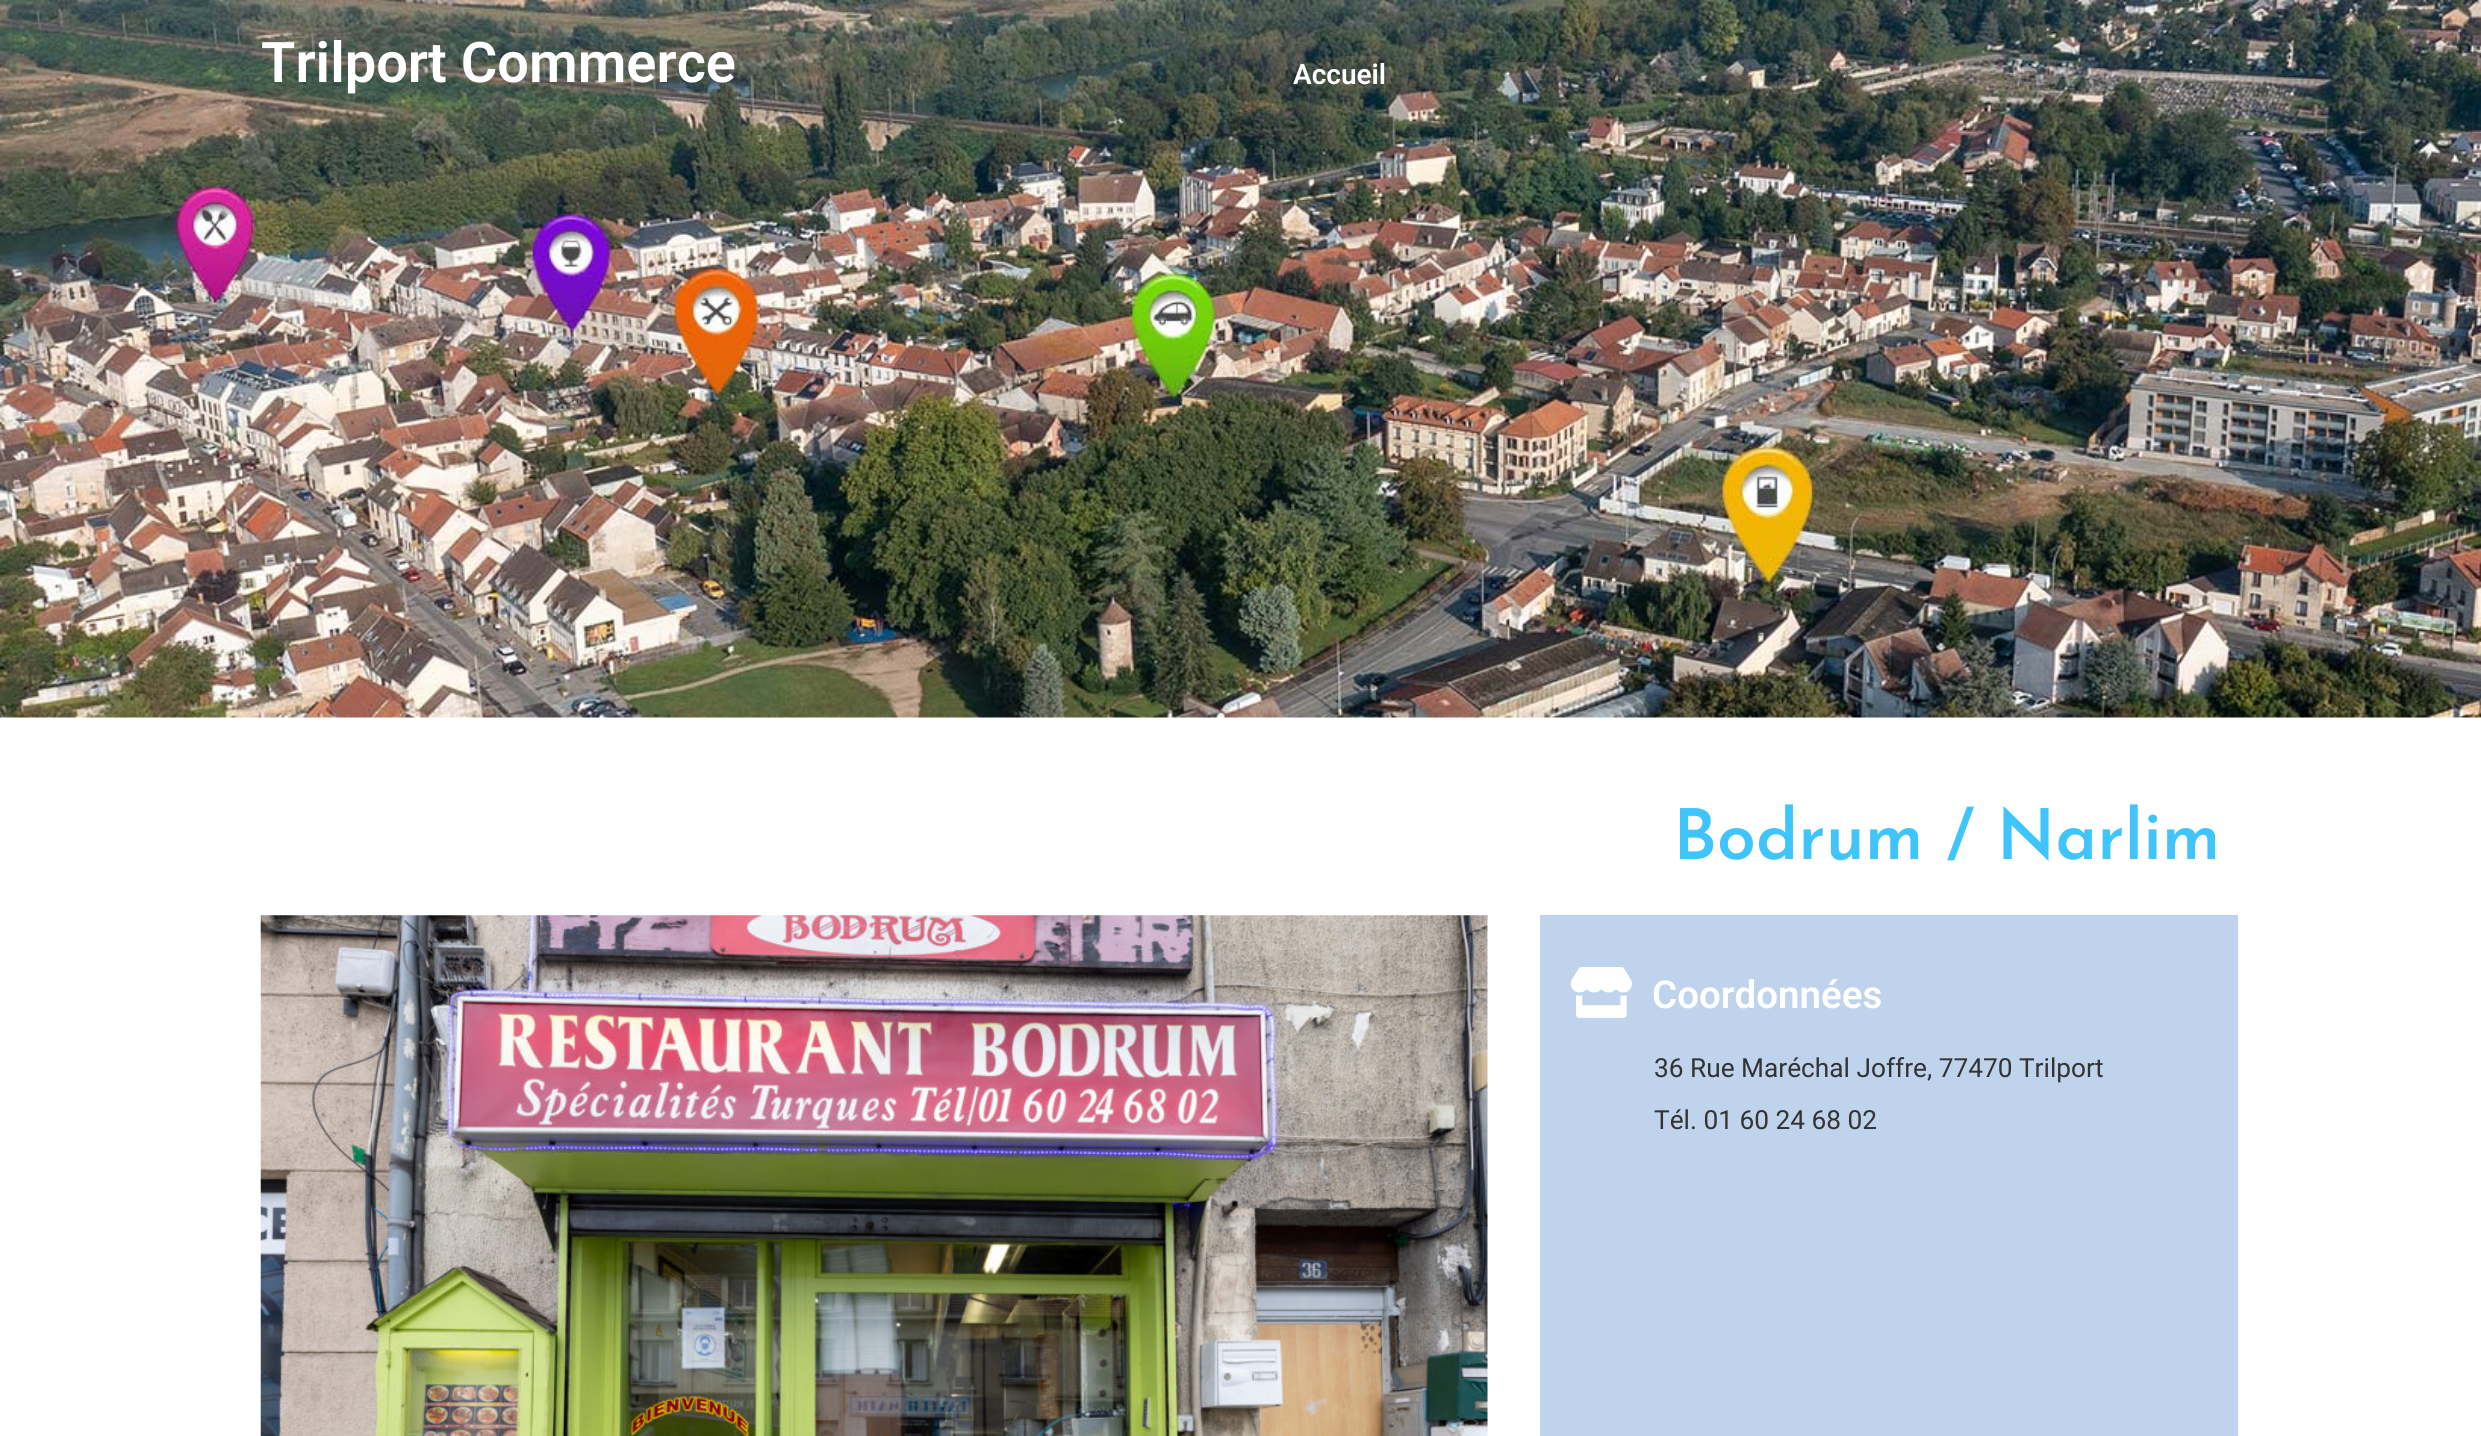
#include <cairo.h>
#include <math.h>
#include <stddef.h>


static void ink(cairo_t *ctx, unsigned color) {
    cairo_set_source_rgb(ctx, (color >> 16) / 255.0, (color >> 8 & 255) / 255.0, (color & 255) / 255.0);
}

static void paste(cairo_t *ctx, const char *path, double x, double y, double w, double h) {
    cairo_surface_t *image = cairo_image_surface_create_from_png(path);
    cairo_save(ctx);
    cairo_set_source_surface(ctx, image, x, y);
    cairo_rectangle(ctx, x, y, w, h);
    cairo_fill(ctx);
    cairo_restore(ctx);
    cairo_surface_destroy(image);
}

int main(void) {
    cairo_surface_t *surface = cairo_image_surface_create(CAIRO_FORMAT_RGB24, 2481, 1436);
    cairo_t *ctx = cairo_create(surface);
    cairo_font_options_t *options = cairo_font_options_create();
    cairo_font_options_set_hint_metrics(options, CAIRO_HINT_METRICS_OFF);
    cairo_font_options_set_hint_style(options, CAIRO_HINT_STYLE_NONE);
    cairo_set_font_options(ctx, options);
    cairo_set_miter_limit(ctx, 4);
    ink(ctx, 0xFFFFFF);
    cairo_paint(ctx);
    paste(ctx, "media/1.png", 0, 0, 2481, 718);
    cairo_select_font_face(ctx, "Roboto SemiBold", CAIRO_FONT_SLANT_NORMAL, CAIRO_FONT_WEIGHT_NORMAL);
    cairo_set_font_size(ctx, 56);
    ink(ctx, 0xFFFFFF);
    cairo_move_to(ctx, 261, 82);
    cairo_show_text(ctx, "Trilport Commerce");
    cairo_set_font_size(ctx, 28);
    cairo_move_to(ctx, 1293, 84);
    cairo_show_text(ctx, "Accueil");
    cairo_select_font_face(ctx, "Josefin Sans SemiBold", CAIRO_FONT_SLANT_NORMAL, CAIRO_FONT_WEIGHT_NORMAL);
    cairo_set_font_size(ctx, 70);
    ink(ctx, 0x40C4FC);
    cairo_move_to(ctx, 1673, 859);
    cairo_show_text(ctx, "Bodrum / Narlim");
    paste(ctx, "media/2.png", 260, 915, 1228, 521);
    ink(ctx, 0xBFD3EC);
    cairo_rectangle(ctx, 1540, 915, 698, 521);
    cairo_fill(ctx);
    paste(ctx, "media/3.png", 1570, 967, 62, 51);
    cairo_select_font_face(ctx, "Roboto SemiBold", CAIRO_FONT_SLANT_NORMAL, CAIRO_FONT_WEIGHT_NORMAL);
    cairo_set_font_size(ctx, 38.5);
    ink(ctx, 0xFFFFFF);
    cairo_move_to(ctx, 1652, 1008);
    cairo_show_text(ctx, "Coordonnées");
    cairo_select_font_face(ctx, "Roboto", CAIRO_FONT_SLANT_NORMAL, CAIRO_FONT_WEIGHT_NORMAL);
    cairo_set_font_size(ctx, 26.25);
    ink(ctx, 0x333333);
    cairo_move_to(ctx, 1654, 1077);
    cairo_show_text(ctx, "36 Rue Maréchal Joffre, 77470 Trilport");
    cairo_move_to(ctx, 1654, 1129);
    cairo_show_text(ctx, "Tél. 01 60 24 68 02");
    cairo_surface_write_to_png(surface, "image.png");
    cairo_font_options_destroy(options);
    cairo_destroy(ctx);
    cairo_surface_destroy(surface);
    return 0;
}
